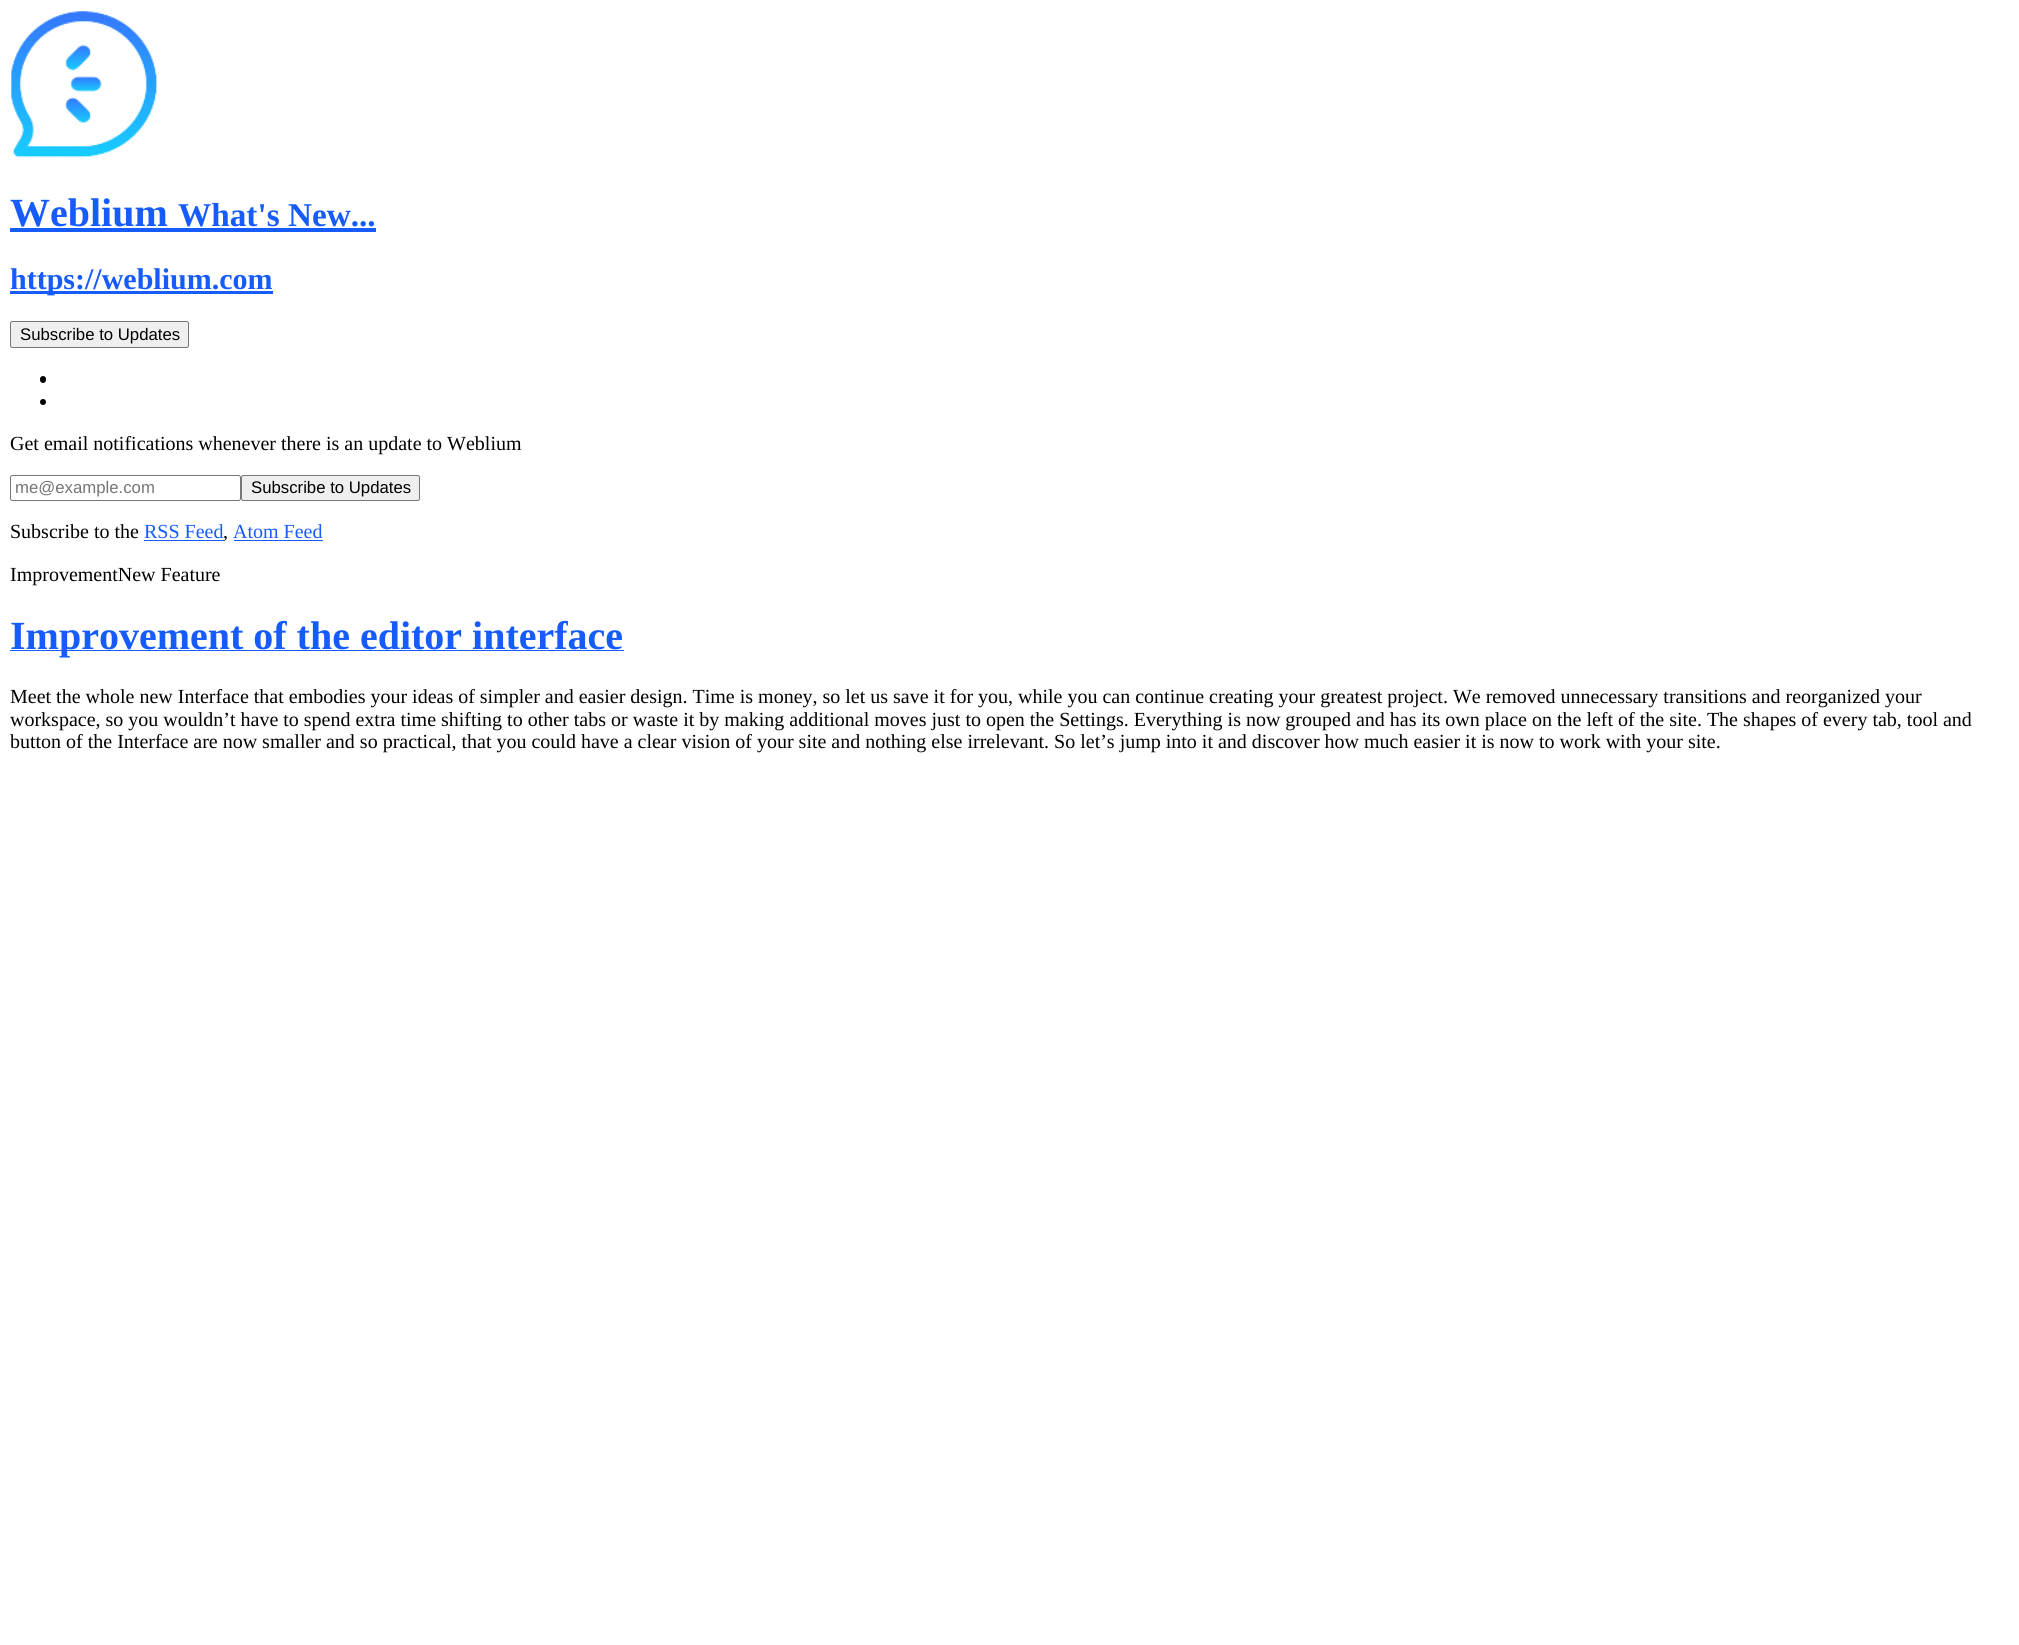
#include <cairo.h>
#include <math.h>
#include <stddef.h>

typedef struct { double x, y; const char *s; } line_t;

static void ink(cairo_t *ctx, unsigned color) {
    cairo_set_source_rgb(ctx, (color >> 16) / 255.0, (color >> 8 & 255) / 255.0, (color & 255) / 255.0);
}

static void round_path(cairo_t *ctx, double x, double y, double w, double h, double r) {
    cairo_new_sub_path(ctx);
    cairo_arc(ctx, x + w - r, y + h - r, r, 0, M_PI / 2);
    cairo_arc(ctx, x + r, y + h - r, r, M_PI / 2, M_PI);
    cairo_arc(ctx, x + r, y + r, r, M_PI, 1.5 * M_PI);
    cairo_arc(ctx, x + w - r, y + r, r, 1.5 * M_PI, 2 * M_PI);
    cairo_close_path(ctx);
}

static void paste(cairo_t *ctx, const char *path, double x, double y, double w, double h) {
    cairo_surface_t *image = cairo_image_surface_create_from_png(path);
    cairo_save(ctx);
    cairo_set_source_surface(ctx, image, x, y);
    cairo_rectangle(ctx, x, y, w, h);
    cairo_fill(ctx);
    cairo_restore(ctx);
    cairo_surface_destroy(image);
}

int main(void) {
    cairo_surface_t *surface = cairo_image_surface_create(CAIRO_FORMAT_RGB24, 2019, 1645);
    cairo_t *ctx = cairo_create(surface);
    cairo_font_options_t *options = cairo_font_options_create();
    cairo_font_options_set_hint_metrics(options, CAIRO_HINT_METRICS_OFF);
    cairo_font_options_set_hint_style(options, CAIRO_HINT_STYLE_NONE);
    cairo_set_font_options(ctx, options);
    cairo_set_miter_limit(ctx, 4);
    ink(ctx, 0xFFFFFF);
    cairo_paint(ctx);
    paste(ctx, "media/1.png", 11, 11, 147, 147);
    cairo_select_font_face(ctx, "Liberation Serif", CAIRO_FONT_SLANT_NORMAL, CAIRO_FONT_WEIGHT_BOLD);
    cairo_set_font_size(ctx, 40);
    ink(ctx, 0x165BFB);
    cairo_move_to(ctx, 10, 226);
    cairo_show_text(ctx, "Weblium");
    cairo_set_font_size(ctx, 33.25);
    cairo_move_to(ctx, 178, 226);
    cairo_show_text(ctx, "What's New...");
    cairo_rectangle(ctx, 10, 228, 366, 4);
    cairo_fill(ctx);
    cairo_rectangle(ctx, 10, 291, 263, 3);
    cairo_fill(ctx);
    cairo_set_font_size(ctx, 30);
    cairo_move_to(ctx, 10, 289);
    cairo_show_text(ctx, "https://weblium.com");
    ink(ctx, 0xEFEFEF);
    round_path(ctx, 10.5, 321.5, 178, 26, 2);
    cairo_fill_preserve(ctx);
    ink(ctx, 0x767676);
    cairo_set_line_width(ctx, 1);
    cairo_stroke(ctx);
    cairo_select_font_face(ctx, "Liberation Sans", CAIRO_FONT_SLANT_NORMAL, CAIRO_FONT_WEIGHT_NORMAL);
    cairo_set_font_size(ctx, 16.75);
    ink(ctx, 0x000000);
    cairo_move_to(ctx, 20, 340);
    cairo_show_text(ctx, "Subscribe to Updates");
    round_path(ctx, 40, 376, 6, 7, 3);
    cairo_fill(ctx);
    cairo_arc(ctx, 43, 402, 3, 0, 2 * M_PI);
    cairo_fill(ctx);
    cairo_select_font_face(ctx, "Liberation Serif", CAIRO_FONT_SLANT_NORMAL, CAIRO_FONT_WEIGHT_NORMAL);
    cairo_set_font_size(ctx, 20);
    cairo_move_to(ctx, 10, 450);
    cairo_show_text(ctx, "Get email notifications whenever there is an update to Weblium");
    round_path(ctx, 10.5, 475.5, 230, 25, 2);
    ink(ctx, 0x767676);
    cairo_stroke(ctx);
    cairo_select_font_face(ctx, "Liberation Sans", CAIRO_FONT_SLANT_NORMAL, CAIRO_FONT_WEIGHT_NORMAL);
    cairo_set_font_size(ctx, 16.75);
    ink(ctx, 0x757575);
    cairo_move_to(ctx, 15, 493);
    cairo_show_text(ctx, "me@example.com");
    ink(ctx, 0xEFEFEF);
    round_path(ctx, 241.5, 475.5, 178, 25, 2);
    cairo_fill_preserve(ctx);
    ink(ctx, 0x767676);
    cairo_stroke(ctx);
    ink(ctx, 0x000000);
    cairo_move_to(ctx, 251, 493);
    cairo_show_text(ctx, "Subscribe to Updates");
    cairo_select_font_face(ctx, "Liberation Serif", CAIRO_FONT_SLANT_NORMAL, CAIRO_FONT_WEIGHT_NORMAL);
    cairo_set_font_size(ctx, 20);
    cairo_move_to(ctx, 10, 538);
    cairo_show_text(ctx, "Subscribe to the");
    ink(ctx, 0x165BFB);
    cairo_move_to(ctx, 144, 538);
    cairo_show_text(ctx, "RSS Feed");
    cairo_rectangle(ctx, 144, 540, 80, 1);
    cairo_fill(ctx);
    ink(ctx, 0x000000);
    cairo_move_to(ctx, 223, 538);
    cairo_show_text(ctx, ",");
    ink(ctx, 0x165BFB);
    cairo_move_to(ctx, 233, 538);
    cairo_show_text(ctx, "Atom Feed");
    cairo_rectangle(ctx, 234, 540, 89, 1);
    cairo_fill(ctx);
    ink(ctx, 0x000000);
    cairo_move_to(ctx, 10, 581);
    cairo_show_text(ctx, "ImprovementNew Feature");
    ink(ctx, 0x165BFB);
    cairo_rectangle(ctx, 10, 650, 614, 1);
    cairo_fill(ctx);
    cairo_select_font_face(ctx, "Liberation Serif", CAIRO_FONT_SLANT_NORMAL, CAIRO_FONT_WEIGHT_BOLD);
    cairo_set_font_size(ctx, 40);
    cairo_move_to(ctx, 10, 649);
    cairo_show_text(ctx, "Improvement of the editor interface");
    cairo_select_font_face(ctx, "Liberation Serif", CAIRO_FONT_SLANT_NORMAL, CAIRO_FONT_WEIGHT_NORMAL);
    cairo_set_font_size(ctx, 20);
    ink(ctx, 0x000000);
    {
        static const line_t items[] = {
            {10, 703, "Meet the whole new Interface that embodies your ideas of simpler and easier design. Time is money, so let us save it for you, while you can continue creating your greatest project. We removed unnecessary transitions and reorganized your"},
            {10, 726, "workspace, so you wouldn’t have to spend extra time shifting to other tabs or waste it by making additional moves just to open the Settings. Everything is now grouped and has its own place on the left of the site. The shapes of every tab, tool and"},
            {10, 748, "button of the Interface are now smaller and so practical, that you could have a clear vision of your site and nothing else irrelevant. So let’s jump into it and discover how much easier it is now to work with your site."},
        };
        for (size_t i = 0; i < sizeof items / sizeof *items; i++) {
            cairo_move_to(ctx, items[i].x, items[i].y);
            cairo_show_text(ctx, items[i].s);
        }
    }
    cairo_surface_write_to_png(surface, "image.png");
    cairo_font_options_destroy(options);
    cairo_destroy(ctx);
    cairo_surface_destroy(surface);
    return 0;
}
